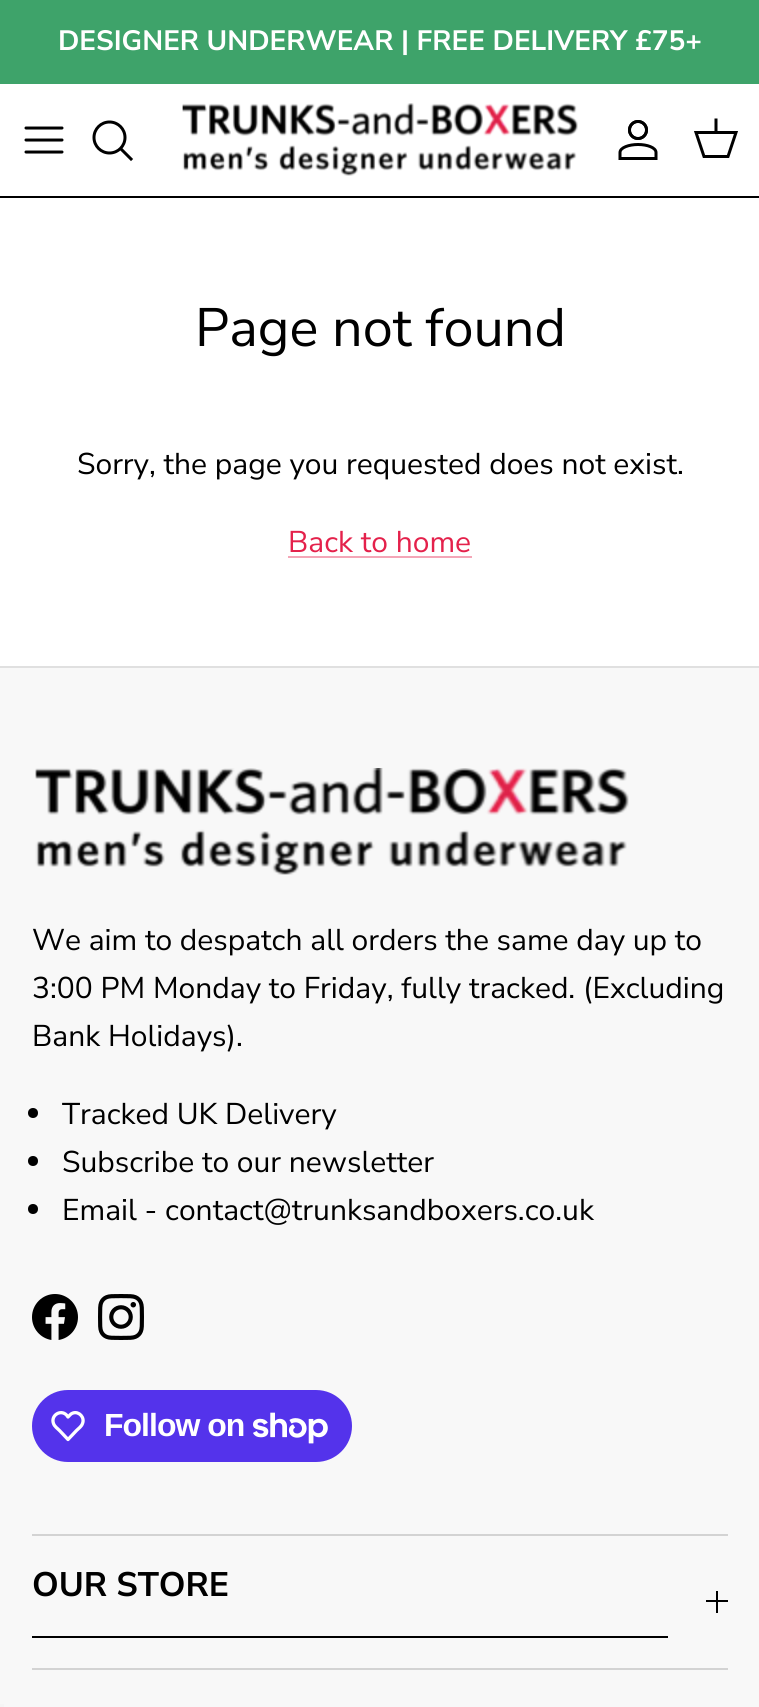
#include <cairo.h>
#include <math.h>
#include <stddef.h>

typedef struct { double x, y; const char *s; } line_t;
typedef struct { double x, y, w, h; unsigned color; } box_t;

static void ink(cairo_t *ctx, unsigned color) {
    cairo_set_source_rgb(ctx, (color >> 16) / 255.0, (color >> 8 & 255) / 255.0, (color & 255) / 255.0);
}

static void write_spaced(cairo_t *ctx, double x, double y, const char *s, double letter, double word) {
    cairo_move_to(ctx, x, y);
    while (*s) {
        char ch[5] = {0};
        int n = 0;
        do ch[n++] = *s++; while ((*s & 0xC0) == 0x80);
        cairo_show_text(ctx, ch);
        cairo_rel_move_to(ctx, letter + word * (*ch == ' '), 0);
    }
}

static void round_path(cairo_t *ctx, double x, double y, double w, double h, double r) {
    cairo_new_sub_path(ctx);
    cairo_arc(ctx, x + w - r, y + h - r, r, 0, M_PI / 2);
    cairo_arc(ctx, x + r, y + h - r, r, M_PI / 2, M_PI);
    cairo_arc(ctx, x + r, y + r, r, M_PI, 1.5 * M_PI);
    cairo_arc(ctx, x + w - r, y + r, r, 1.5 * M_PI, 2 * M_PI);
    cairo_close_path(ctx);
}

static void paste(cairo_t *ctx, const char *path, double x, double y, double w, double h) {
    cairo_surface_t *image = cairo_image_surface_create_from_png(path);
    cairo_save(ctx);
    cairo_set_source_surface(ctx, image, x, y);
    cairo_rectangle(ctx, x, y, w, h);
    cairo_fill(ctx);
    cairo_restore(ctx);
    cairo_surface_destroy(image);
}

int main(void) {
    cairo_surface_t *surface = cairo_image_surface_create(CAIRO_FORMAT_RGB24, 759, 1707);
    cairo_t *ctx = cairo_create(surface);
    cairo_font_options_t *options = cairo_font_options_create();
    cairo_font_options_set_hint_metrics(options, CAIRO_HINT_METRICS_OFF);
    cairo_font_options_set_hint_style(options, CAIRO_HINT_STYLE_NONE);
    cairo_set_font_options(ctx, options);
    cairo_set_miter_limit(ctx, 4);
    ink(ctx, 0xFFFFFF);
    cairo_paint(ctx);
    ink(ctx, 0x3EA36A);
    cairo_rectangle(ctx, 0, 0, 759, 84);
    cairo_fill(ctx);
    cairo_select_font_face(ctx, "Nunito Sans", CAIRO_FONT_SLANT_NORMAL, CAIRO_FONT_WEIGHT_BOLD);
    cairo_set_font_size(ctx, 28);
    ink(ctx, 0xFFFFFF);
    cairo_move_to(ctx, 58, 50);
    cairo_show_text(ctx, "DESIGNER UNDERWEAR | FREE DELIVERY £75+");
    ink(ctx, 0x000000);
    cairo_rectangle(ctx, 0, 196, 759, 2);
    cairo_fill(ctx);
    cairo_new_path(ctx);
    cairo_move_to(ctx, 26, 140);
    cairo_line_to(ctx, 62, 140);
    cairo_move_to(ctx, 26, 128);
    cairo_line_to(ctx, 62, 128);
    cairo_move_to(ctx, 26, 152);
    cairo_line_to(ctx, 62, 152);
    cairo_set_line_width(ctx, 3);
    cairo_set_line_cap(ctx, CAIRO_LINE_CAP_ROUND);
    cairo_set_line_join(ctx, CAIRO_LINE_JOIN_ROUND);
    cairo_stroke(ctx);
    cairo_arc(ctx, 109.5, 137.5, 15.5, 0, 2 * M_PI);
    cairo_set_line_cap(ctx, CAIRO_LINE_CAP_BUTT);
    cairo_set_line_join(ctx, CAIRO_LINE_JOIN_MITER);
    cairo_stroke(ctx);
    cairo_new_path(ctx);
    cairo_move_to(ctx, 122, 150);
    cairo_line_to(ctx, 131, 159);
    cairo_set_line_cap(ctx, CAIRO_LINE_CAP_SQUARE);
    cairo_stroke(ctx);
    paste(ctx, "media/1.png", 182, 103, 396, 73);
    paste(ctx, "media/2.png", 618, 120, 40, 40);
    cairo_new_path(ctx);
    cairo_move_to(ctx, 696, 132.5);
    cairo_line_to(ctx, 736, 132.5);
    cairo_line_to(ctx, 728, 156.5);
    cairo_line_to(ctx, 704, 156.5);
    cairo_close_path(ctx);
    cairo_set_line_cap(ctx, CAIRO_LINE_CAP_BUTT);
    cairo_stroke(ctx);
    cairo_new_path(ctx);
    cairo_move_to(ctx, 716, 132);
    cairo_line_to(ctx, 716, 120);
    cairo_set_line_cap(ctx, CAIRO_LINE_CAP_SQUARE);
    cairo_stroke(ctx);
    cairo_select_font_face(ctx, "Nunito Sans", CAIRO_FONT_SLANT_NORMAL, CAIRO_FONT_WEIGHT_NORMAL);
    cairo_set_font_size(ctx, 54);
    cairo_move_to(ctx, 195, 346);
    cairo_show_text(ctx, "Page not found");
    cairo_set_font_size(ctx, 30);
    cairo_move_to(ctx, 77, 474);
    cairo_show_text(ctx, "Sorry, the page you requested does not exist.");
    ink(ctx, 0xE4214B);
    cairo_move_to(ctx, 288, 552);
    cairo_show_text(ctx, "Back to home");
    {
        static const box_t items[] = {
            {288, 556, 184, 2, 0xF4A6B7},
            {0, 668, 759, 1039, 0xF8F8F8},
            {0, 666, 759, 2, 0xE0E0E0},
        };
        for (size_t i = 0; i < sizeof items / sizeof *items; i++) {
            ink(ctx, items[i].color);
            cairo_rectangle(ctx, items[i].x, items[i].y, items[i].w, items[i].h);
            cairo_fill(ctx);
        }
    }
    paste(ctx, "media/3.png", 35, 768, 594, 107);
    ink(ctx, 0x000000);
    {
        static const line_t items[] = {
            {32, 950, "We aim to despatch all orders the same day up to"},
            {32, 998, "3:00 PM Monday to Friday, fully tracked. (Excluding"},
            {32, 1046, "Bank Holidays)."},
        };
        for (size_t i = 0; i < sizeof items / sizeof *items; i++) {
            cairo_move_to(ctx, items[i].x, items[i].y);
            cairo_show_text(ctx, items[i].s);
        }
    }
    cairo_new_path(ctx);
    cairo_arc(ctx, 33, 1113, 5, 0, 2 * M_PI);
    cairo_fill(ctx);
    cairo_move_to(ctx, 62, 1124);
    cairo_show_text(ctx, "Tracked UK Delivery");
    cairo_new_path(ctx);
    cairo_arc(ctx, 33, 1161, 5, 0, 2 * M_PI);
    cairo_fill(ctx);
    cairo_move_to(ctx, 62, 1172);
    cairo_show_text(ctx, "Subscribe to our newsletter");
    cairo_new_path(ctx);
    cairo_arc(ctx, 33, 1209, 5, 0, 2 * M_PI);
    cairo_fill(ctx);
    cairo_move_to(ctx, 62, 1220);
    cairo_show_text(ctx, "Email - contact@trunksandboxers.co.uk");
    paste(ctx, "media/4.png", 32, 1294, 46, 46);
    paste(ctx, "media/5.png", 98, 1294, 46, 46);
    ink(ctx, 0x5433EB);
    round_path(ctx, 32, 1390, 320, 72, 36);
    cairo_fill(ctx);
    cairo_new_path(ctx);
    cairo_move_to(ctx, 66.5, 1415);
    cairo_line_to(ctx, 68, 1417);
    cairo_curve_to(ctx, 69.5, 1415.5, 71, 1413.5, 73, 1413);
    cairo_curve_to(ctx, 79, 1411, 85, 1417.5, 82.5, 1423.5);
    cairo_curve_to(ctx, 81.5, 1426.5, 78.5, 1428.5, 76.5, 1430.5);
    cairo_line_to(ctx, 68, 1439.5);
    cairo_line_to(ctx, 59.5, 1430.5);
    cairo_curve_to(ctx, 57.5, 1428.5, 54.5, 1426.5, 53.5, 1423.5);
    cairo_curve_to(ctx, 50.5, 1415.5, 60.5, 1409, 66.5, 1415);
    cairo_close_path(ctx);
    ink(ctx, 0xFFFFFF);
    cairo_set_line_width(ctx, 3.3);
    cairo_set_line_cap(ctx, CAIRO_LINE_CAP_BUTT);
    cairo_set_line_join(ctx, CAIRO_LINE_JOIN_ROUND);
    cairo_stroke(ctx);
    cairo_select_font_face(ctx, "Liberation Sans", CAIRO_FONT_SLANT_NORMAL, CAIRO_FONT_WEIGHT_BOLD);
    cairo_set_font_size(ctx, 32);
    write_spaced(ctx, 104, 1436, "Follow on", -1, 0);
    paste(ctx, "media/6.png", 253, 1412, 75, 32);
    ink(ctx, 0xD3D3D3);
    cairo_rectangle(ctx, 32, 1534, 696, 2);
    cairo_fill(ctx);
    ink(ctx, 0x000000);
    cairo_rectangle(ctx, 32, 1636, 636, 2);
    cairo_fill(ctx);
    cairo_select_font_face(ctx, "Nunito Sans", CAIRO_FONT_SLANT_NORMAL, CAIRO_FONT_WEIGHT_BOLD);
    cairo_set_font_size(ctx, 34);
    cairo_move_to(ctx, 32, 1596);
    cairo_show_text(ctx, "OUR STORE");
    {
        static const box_t items[] = {
            {716, 1591, 2, 22, 0x000000},
            {706, 1600, 22, 2, 0x000000},
            {32, 1668, 696, 2, 0xD3D3D3},
            {0, 1704, 4, 3, 0xF5F5F5},
        };
        for (size_t i = 0; i < sizeof items / sizeof *items; i++) {
            ink(ctx, items[i].color);
            cairo_rectangle(ctx, items[i].x, items[i].y, items[i].w, items[i].h);
            cairo_fill(ctx);
        }
    }
    cairo_surface_write_to_png(surface, "image.png");
    cairo_font_options_destroy(options);
    cairo_destroy(ctx);
    cairo_surface_destroy(surface);
    return 0;
}
